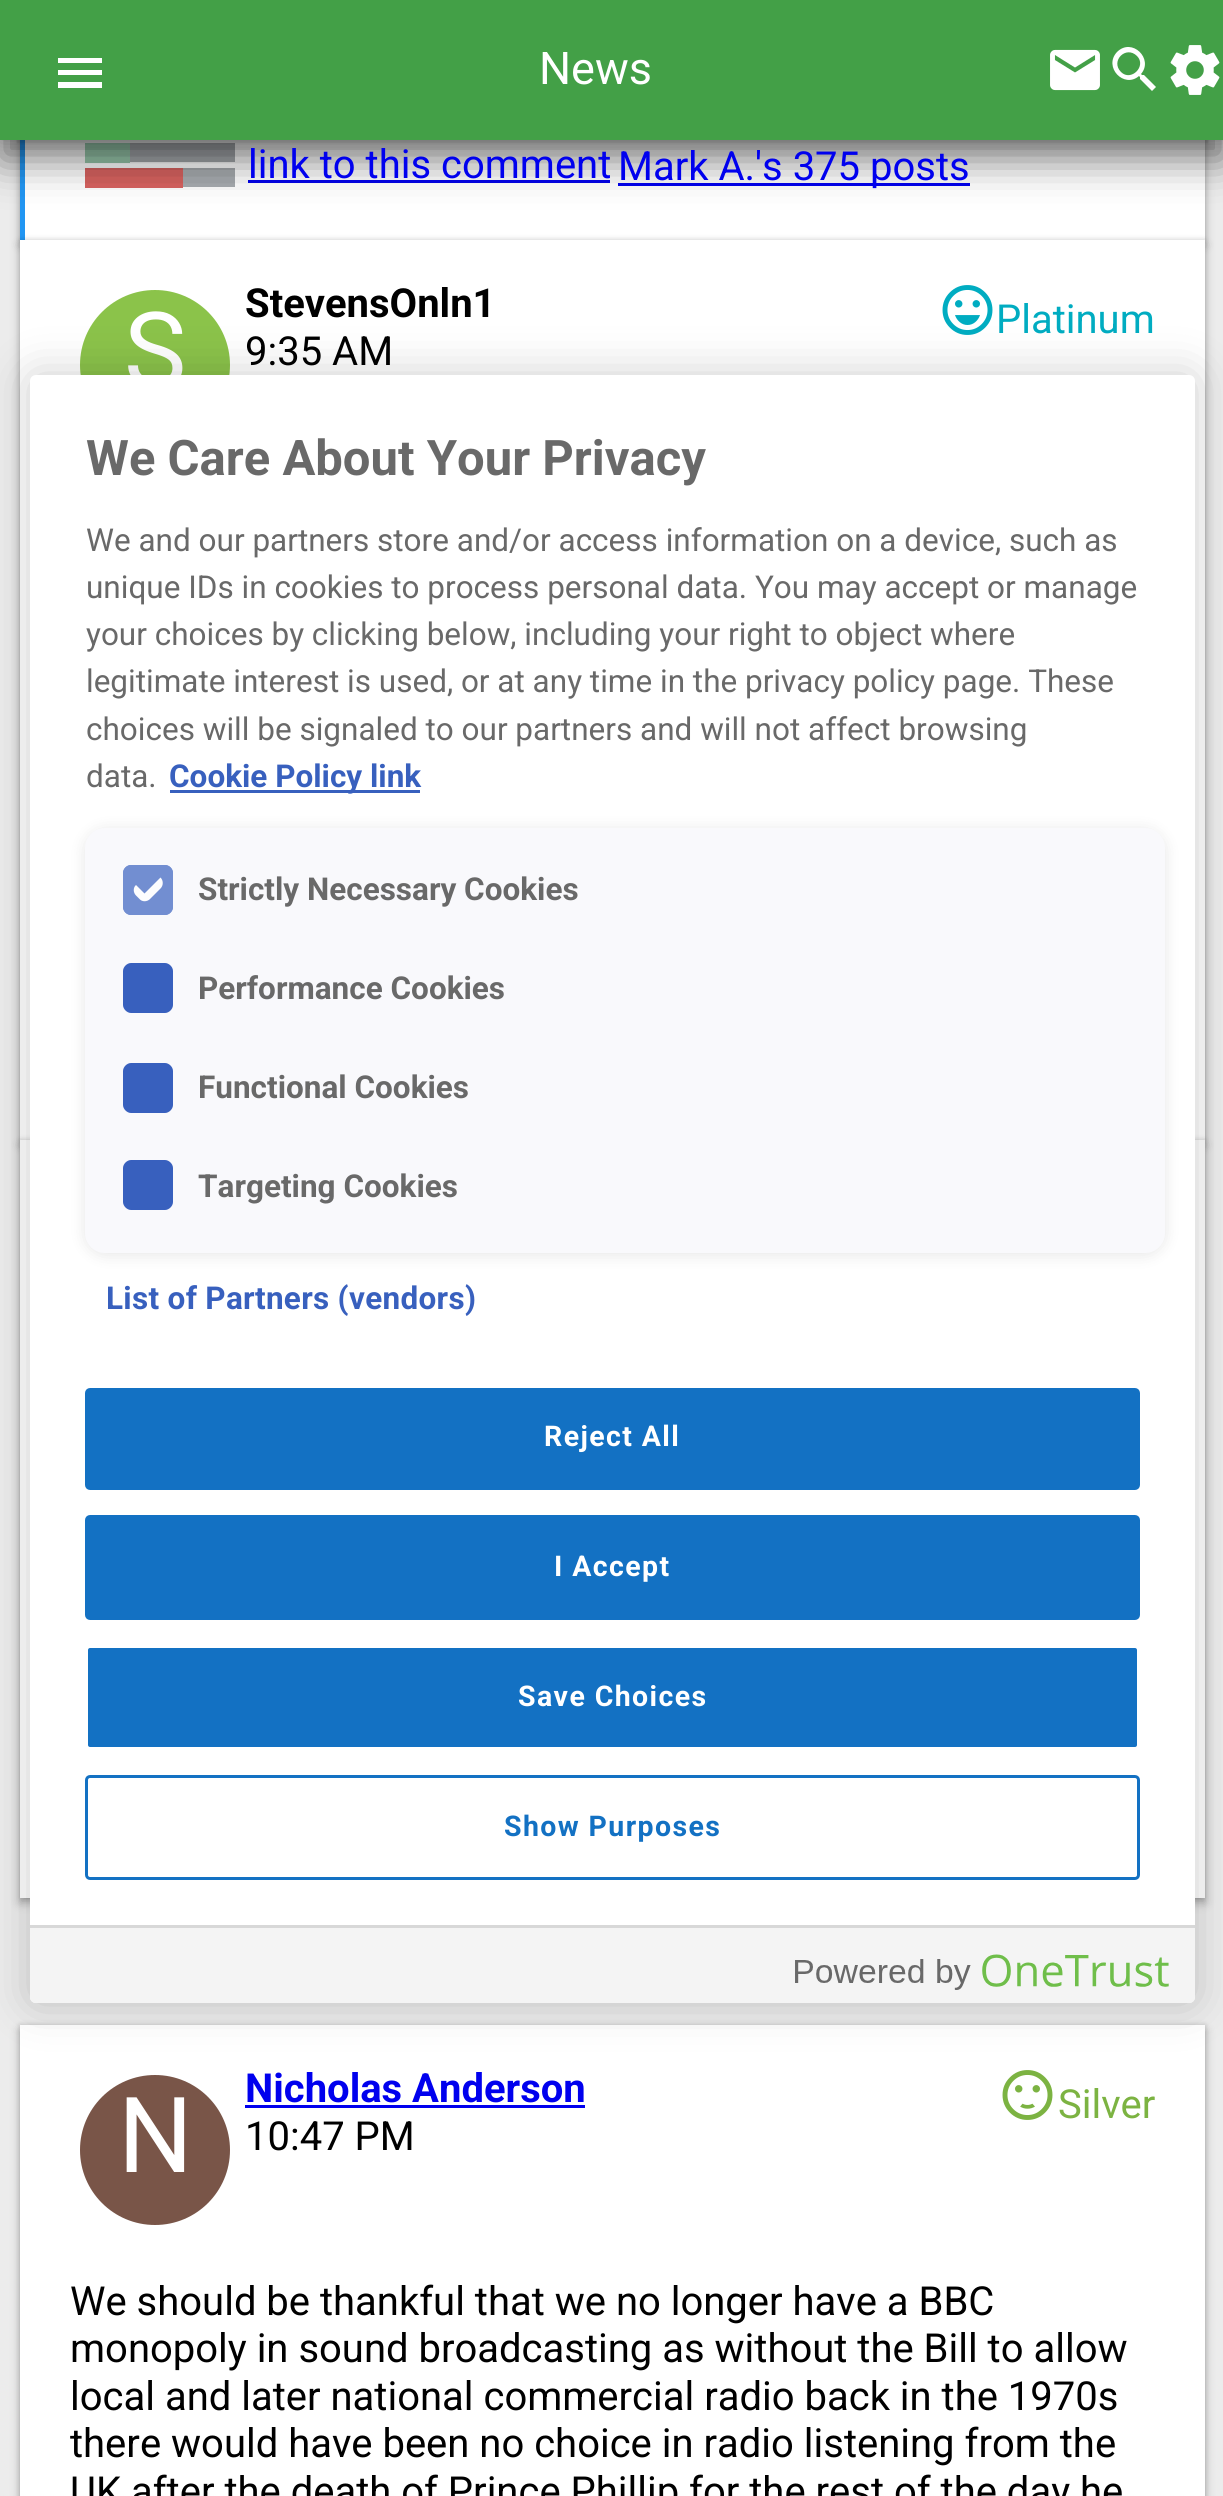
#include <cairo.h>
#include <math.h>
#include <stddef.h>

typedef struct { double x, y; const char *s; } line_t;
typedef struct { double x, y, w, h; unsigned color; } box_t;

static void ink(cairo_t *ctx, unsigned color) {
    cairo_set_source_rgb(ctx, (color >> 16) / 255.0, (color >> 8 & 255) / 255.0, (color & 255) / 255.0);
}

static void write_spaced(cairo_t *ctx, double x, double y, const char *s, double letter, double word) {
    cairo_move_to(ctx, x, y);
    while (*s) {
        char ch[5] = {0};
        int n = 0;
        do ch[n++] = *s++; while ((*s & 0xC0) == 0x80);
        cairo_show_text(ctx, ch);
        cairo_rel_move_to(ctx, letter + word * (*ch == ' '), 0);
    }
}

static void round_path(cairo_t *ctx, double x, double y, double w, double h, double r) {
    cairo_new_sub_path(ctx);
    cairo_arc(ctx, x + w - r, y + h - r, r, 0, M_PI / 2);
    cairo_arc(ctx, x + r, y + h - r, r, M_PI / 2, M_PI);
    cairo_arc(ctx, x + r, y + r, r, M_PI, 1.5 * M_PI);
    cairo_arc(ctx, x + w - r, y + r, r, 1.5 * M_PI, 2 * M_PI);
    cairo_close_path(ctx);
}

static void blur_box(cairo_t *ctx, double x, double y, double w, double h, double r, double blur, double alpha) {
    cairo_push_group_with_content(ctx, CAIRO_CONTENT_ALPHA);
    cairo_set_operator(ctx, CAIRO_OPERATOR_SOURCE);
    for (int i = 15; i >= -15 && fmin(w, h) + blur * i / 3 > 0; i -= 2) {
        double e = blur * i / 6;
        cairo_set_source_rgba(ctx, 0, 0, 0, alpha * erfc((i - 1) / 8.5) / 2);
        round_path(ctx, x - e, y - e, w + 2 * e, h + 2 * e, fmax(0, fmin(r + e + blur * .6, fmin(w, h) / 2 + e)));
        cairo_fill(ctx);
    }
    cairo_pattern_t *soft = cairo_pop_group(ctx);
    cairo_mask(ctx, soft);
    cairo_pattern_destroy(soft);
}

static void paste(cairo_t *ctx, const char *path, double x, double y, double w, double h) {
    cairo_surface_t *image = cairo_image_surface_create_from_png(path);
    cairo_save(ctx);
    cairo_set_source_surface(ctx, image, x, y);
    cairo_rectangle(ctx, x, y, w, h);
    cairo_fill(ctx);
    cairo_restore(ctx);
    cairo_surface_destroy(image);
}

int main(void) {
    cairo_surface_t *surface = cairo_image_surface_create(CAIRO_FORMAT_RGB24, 1223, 2496);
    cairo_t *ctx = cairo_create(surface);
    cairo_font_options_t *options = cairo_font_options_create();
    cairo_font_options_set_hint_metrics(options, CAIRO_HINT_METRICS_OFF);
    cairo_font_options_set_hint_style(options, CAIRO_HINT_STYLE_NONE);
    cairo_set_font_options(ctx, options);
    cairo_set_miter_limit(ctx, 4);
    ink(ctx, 0xECECEC);
    cairo_paint(ctx);
    ink(ctx, 0x000000);
    blur_box(ctx, 20, -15, 1185, 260, 0, 5, 0.28);
    blur_box(ctx, 20, -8, 1185, 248, 0, 2.5, 0.14);
    {
        static const box_t items[] = {
            {25, 140, 1180, 100, 0xFFFFFF},
            {20, 140, 5, 100, 0x2196F3},
            {130, 143, 105, 19, 0xA7ABAF},
            {85, 143, 45, 20, 0x9CCEB1},
            {183, 168, 52, 19, 0xA7ABAF},
            {85, 168, 98, 20, 0xD7625F},
            {248, 180, 362, 3, 0x0000EE},
            {618, 183, 352, 3, 0x0000EE},
        };
        for (size_t i = 0; i < sizeof items / sizeof *items; i++) {
            ink(ctx, items[i].color);
            cairo_rectangle(ctx, items[i].x, items[i].y, items[i].w, items[i].h);
            cairo_fill(ctx);
        }
    }
    ink(ctx, 0x000000);
    blur_box(ctx, 0, 20, 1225, 140, 0, 20, 0.52);
    blur_box(ctx, 0, 0, 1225, 140, 0, 10, 0.26);
    ink(ctx, 0x43A047);
    cairo_rectangle(ctx, 0, 0, 1223, 140);
    cairo_fill(ctx);
    ink(ctx, 0xFFFFFF);
    cairo_new_path(ctx);
    cairo_move_to(ctx, 58, 58);
    cairo_line_to(ctx, 102, 58);
    cairo_line_to(ctx, 102, 63);
    cairo_line_to(ctx, 58, 63);
    cairo_close_path(ctx);
    cairo_move_to(ctx, 58, 75);
    cairo_line_to(ctx, 58, 70);
    cairo_line_to(ctx, 102, 70);
    cairo_line_to(ctx, 102, 75);
    cairo_close_path(ctx);
    cairo_move_to(ctx, 58, 88);
    cairo_line_to(ctx, 58, 82);
    cairo_line_to(ctx, 102, 82);
    cairo_line_to(ctx, 102, 88);
    cairo_close_path(ctx);
    cairo_fill(ctx);
    cairo_select_font_face(ctx, "Roboto", CAIRO_FONT_SLANT_NORMAL, CAIRO_FONT_WEIGHT_NORMAL);
    cairo_set_font_size(ctx, 45);
    cairo_move_to(ctx, 539, 84);
    cairo_show_text(ctx, "News");
    paste(ctx, "media/1.png", 1050, 49, 50, 42);
    cairo_new_path(ctx);
    cairo_move_to(ctx, 1121, 72);
    cairo_curve_to(ctx, 1131, 82, 1147, 66, 1137, 56);
    cairo_curve_to(ctx, 1126, 45, 1110, 61, 1121, 72);
    cairo_close_path(ctx);
    cairo_move_to(ctx, 1144, 75);
    cairo_line_to(ctx, 1156, 87);
    cairo_line_to(ctx, 1152, 91);
    cairo_line_to(ctx, 1140, 79);
    cairo_line_to(ctx, 1140, 77);
    cairo_line_to(ctx, 1139, 76);
    cairo_curve_to(ctx, 1124, 89, 1103, 67, 1117, 52);
    cairo_curve_to(ctx, 1132, 37, 1154, 59, 1141, 74);
    cairo_line_to(ctx, 1142, 75);
    cairo_close_path(ctx);
    cairo_fill(ctx);
    paste(ctx, "media/2.png", 1170, 45, 50, 50);
    cairo_set_font_size(ctx, 40);
    ink(ctx, 0x0000EE);
    cairo_move_to(ctx, 248, 178);
    cairo_show_text(ctx, "link to this comment");
    cairo_move_to(ctx, 618, 180);
    cairo_show_text(ctx, "Mark A.'s 375 posts");
    ink(ctx, 0x000000);
    blur_box(ctx, 20, 245, 1185, 900, 0, 5, 0.28);
    blur_box(ctx, 20, 240, 1185, 900, 0, 2.5, 0.14);
    ink(ctx, 0xFFFFFF);
    cairo_rectangle(ctx, 20, 240, 1185, 900);
    cairo_fill(ctx);
    ink(ctx, 0x8BC34A);
    cairo_arc(ctx, 155, 365, 75, 0, 2 * M_PI);
    cairo_fill(ctx);
    cairo_set_font_size(ctx, 105);
    ink(ctx, 0xFFFFFF);
    cairo_move_to(ctx, 124, 387);
    cairo_show_text(ctx, "S");
    cairo_select_font_face(ctx, "Roboto", CAIRO_FONT_SLANT_NORMAL, CAIRO_FONT_WEIGHT_BOLD);
    cairo_set_font_size(ctx, 40);
    ink(ctx, 0x000000);
    cairo_move_to(ctx, 245, 317);
    cairo_show_text(ctx, "StevensOnln1");
    paste(ctx, "media/3.png", 942, 285, 51, 50);
    cairo_select_font_face(ctx, "Roboto", CAIRO_FONT_SLANT_NORMAL, CAIRO_FONT_WEIGHT_NORMAL);
    ink(ctx, 0x00ACC1);
    cairo_move_to(ctx, 996, 333);
    cairo_show_text(ctx, "Platinum");
    ink(ctx, 0x000000);
    cairo_move_to(ctx, 245, 365);
    cairo_show_text(ctx, "9:35 AM");
    ink(ctx, 0x000000);
    blur_box(ctx, 20, 1145, 1185, 758, 0, 5, 0.28);
    blur_box(ctx, 20, 1140, 1185, 758, 0, 2.5, 0.14);
    ink(ctx, 0xFFFFFF);
    cairo_rectangle(ctx, 20, 1140, 1185, 758);
    cairo_fill(ctx);
    ink(ctx, 0x000000);
    blur_box(ctx, 20, 2030, 1185, 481, 0, 5, 0.28);
    blur_box(ctx, 20, 2025, 1185, 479, 0, 2.5, 0.14);
    ink(ctx, 0xFFFFFF);
    cairo_rectangle(ctx, 20, 2025, 1185, 471);
    cairo_fill(ctx);
    ink(ctx, 0x795548);
    cairo_arc(ctx, 155, 2150, 75, 0, 2 * M_PI);
    cairo_fill(ctx);
    cairo_set_font_size(ctx, 105);
    ink(ctx, 0xFFFFFF);
    cairo_move_to(ctx, 118, 2172);
    cairo_show_text(ctx, "N");
    cairo_select_font_face(ctx, "Roboto", CAIRO_FONT_SLANT_NORMAL, CAIRO_FONT_WEIGHT_BOLD);
    cairo_set_font_size(ctx, 40);
    ink(ctx, 0x0000EE);
    cairo_move_to(ctx, 245, 2102);
    cairo_show_text(ctx, "Nicholas Anderson");
    cairo_rectangle(ctx, 245, 2105, 340, 3);
    cairo_fill(ctx);
    paste(ctx, "media/4.png", 1002, 2070, 51, 50);
    cairo_select_font_face(ctx, "Roboto", CAIRO_FONT_SLANT_NORMAL, CAIRO_FONT_WEIGHT_NORMAL);
    ink(ctx, 0x7CB342);
    cairo_move_to(ctx, 1058, 2118);
    cairo_show_text(ctx, "Silver");
    ink(ctx, 0x000000);
    {
        static const line_t items[] = {
            {245, 2150, "10:47 PM"},
            {70, 2315, "We should be thankful that we no longer have a BBC"},
            {70, 2362, "monopoly in sound broadcasting as without the Bill to allow"},
            {70, 2410, "local and later national commercial radio back in the 1970s"},
            {70, 2457, "there would have been no choice in radio listening from the"},
            {70, 2505, "UK after the death of Prince Phillip for the rest of the day he"},
        };
        for (size_t i = 0; i < sizeof items / sizeof *items; i++) {
            cairo_move_to(ctx, items[i].x, items[i].y);
            cairo_show_text(ctx, items[i].s);
        }
    }
    ink(ctx, 0x000000);
    blur_box(ctx, 30, 375, 1165, 1628, 6, 22.5, 0.2);
    ink(ctx, 0xFFFFFF);
    round_path(ctx, 30, 375, 1165, 1628, 6);
    cairo_fill(ctx);
    cairo_select_font_face(ctx, "Roboto", CAIRO_FONT_SLANT_NORMAL, CAIRO_FONT_WEIGHT_BOLD);
    cairo_set_font_size(ctx, 49);
    ink(ctx, 0x696969);
    cairo_move_to(ctx, 86, 475);
    cairo_show_text(ctx, "We Care About Your Privacy");
    cairo_select_font_face(ctx, "Roboto", CAIRO_FONT_SLANT_NORMAL, CAIRO_FONT_WEIGHT_NORMAL);
    cairo_set_font_size(ctx, 31.5);
    {
        static const line_t items[] = {
            {86, 551, "We and our partners store and/or access information on a device, such as"},
            {86, 598, "unique IDs in cookies to process personal data. You may accept or manage"},
            {86, 645, "your choices by clicking below, including your right to object where"},
            {86, 692, "legitimate interest is used, or at any time in the privacy policy page. These"},
            {86, 740, "choices will be signaled to our partners and will not affect browsing"},
            {86, 787, "data."},
        };
        for (size_t i = 0; i < sizeof items / sizeof *items; i++) {
            cairo_move_to(ctx, items[i].x, items[i].y);
            cairo_show_text(ctx, items[i].s);
        }
    }
    ink(ctx, 0x3860BE);
    cairo_rectangle(ctx, 170, 790, 250, 3);
    cairo_fill(ctx);
    cairo_select_font_face(ctx, "Roboto", CAIRO_FONT_SLANT_NORMAL, CAIRO_FONT_WEIGHT_BOLD);
    cairo_move_to(ctx, 169, 787);
    cairo_show_text(ctx, "Cookie Policy link");
    ink(ctx, 0x000000);
    blur_box(ctx, 85, 830, 1080, 425, 20, 7.5, 0.1);
    ink(ctx, 0xF9F9FC);
    round_path(ctx, 85, 828, 1080, 425, 20);
    cairo_fill(ctx);
    ink(ctx, 0x728ED1);
    round_path(ctx, 123, 865, 50, 50, 8);
    cairo_fill(ctx);
    cairo_new_path(ctx);
    cairo_move_to(ctx, 131, 865);
    cairo_line_to(ctx, 165, 865);
    cairo_curve_to(ctx, 169, 865, 173, 869, 173, 873);
    cairo_line_to(ctx, 173, 907);
    cairo_curve_to(ctx, 173, 911, 169, 915, 165, 915);
    cairo_line_to(ctx, 131, 915);
    cairo_curve_to(ctx, 127, 915, 123, 911, 123, 907);
    cairo_line_to(ctx, 123, 873);
    cairo_curve_to(ctx, 123, 869, 127, 865, 131, 865);
    cairo_close_path(ctx);
    cairo_fill(ctx);
    ink(ctx, 0xFDFDFE);
    cairo_set_fill_rule(ctx, CAIRO_FILL_RULE_EVEN_ODD);
    cairo_new_path(ctx);
    cairo_move_to(ctx, 136, 885);
    cairo_line_to(ctx, 146.5, 874);
    cairo_curve_to(ctx, 149.5, 871, 154, 871, 157, 874);
    cairo_line_to(ctx, 160.5, 877.5);
    cairo_curve_to(ctx, 163.5, 880.5, 163.5, 885.5, 160.5, 888.5);
    cairo_line_to(ctx, 150, 899);
    cairo_curve_to(ctx, 147, 902, 142, 902, 139.5, 899);
    cairo_line_to(ctx, 136, 895.5);
    cairo_curve_to(ctx, 133, 892.5, 133, 887.5, 136, 885);
    cairo_close_path(ctx);
    cairo_move_to(ctx, 136, 885);
    cairo_line_to(ctx, 146.5, 874);
    cairo_curve_to(ctx, 149.5, 871, 154, 871, 157, 874);
    cairo_line_to(ctx, 160.5, 877.5);
    cairo_line_to(ctx, 144.5, 893.5);
    cairo_close_path(ctx);
    cairo_fill(ctx);
    ink(ctx, 0x696969);
    cairo_move_to(ctx, 198, 900);
    cairo_show_text(ctx, "Strictly Necessary Cookies");
    ink(ctx, 0x3860BE);
    cairo_set_fill_rule(ctx, CAIRO_FILL_RULE_WINDING);
    cairo_new_path(ctx);
    cairo_move_to(ctx, 131, 963);
    cairo_line_to(ctx, 165, 963);
    cairo_curve_to(ctx, 169, 963, 173, 967, 173, 971);
    cairo_line_to(ctx, 173, 1005);
    cairo_curve_to(ctx, 173, 1009, 169, 1013, 165, 1013);
    cairo_line_to(ctx, 131, 1013);
    cairo_curve_to(ctx, 127, 1013, 123, 1009, 123, 1005);
    cairo_line_to(ctx, 123, 971);
    cairo_curve_to(ctx, 123, 967, 127, 963, 131, 963);
    cairo_close_path(ctx);
    cairo_fill(ctx);
    ink(ctx, 0x696969);
    cairo_move_to(ctx, 198, 999);
    cairo_show_text(ctx, "Performance Cookies");
    ink(ctx, 0x3860BE);
    cairo_new_path(ctx);
    cairo_move_to(ctx, 131, 1063);
    cairo_line_to(ctx, 165, 1063);
    cairo_curve_to(ctx, 169, 1063, 173, 1067, 173, 1071);
    cairo_line_to(ctx, 173, 1105);
    cairo_curve_to(ctx, 173, 1109, 169, 1113, 165, 1113);
    cairo_line_to(ctx, 131, 1113);
    cairo_curve_to(ctx, 127, 1113, 123, 1109, 123, 1105);
    cairo_line_to(ctx, 123, 1071);
    cairo_curve_to(ctx, 123, 1067, 127, 1063, 131, 1063);
    cairo_close_path(ctx);
    cairo_fill(ctx);
    ink(ctx, 0x696969);
    cairo_move_to(ctx, 198, 1098);
    cairo_show_text(ctx, "Functional Cookies");
    ink(ctx, 0x3860BE);
    cairo_new_path(ctx);
    cairo_move_to(ctx, 131, 1160);
    cairo_line_to(ctx, 165, 1160);
    cairo_curve_to(ctx, 169, 1160, 173, 1164, 173, 1168);
    cairo_line_to(ctx, 173, 1202);
    cairo_curve_to(ctx, 173, 1206, 169, 1210, 165, 1210);
    cairo_line_to(ctx, 131, 1210);
    cairo_curve_to(ctx, 127, 1210, 123, 1206, 123, 1202);
    cairo_line_to(ctx, 123, 1168);
    cairo_curve_to(ctx, 123, 1164, 127, 1160, 131, 1160);
    cairo_close_path(ctx);
    cairo_fill(ctx);
    ink(ctx, 0x696969);
    cairo_move_to(ctx, 198, 1197);
    cairo_show_text(ctx, "Targeting Cookies");
    ink(ctx, 0x3860BE);
    write_spaced(ctx, 106, 1309, "List of Partners (vendors)", 0.3, 0);
    ink(ctx, 0x1371C3);
    round_path(ctx, 86.5, 1389.5, 1052, 99, 3.5);
    cairo_fill_preserve(ctx);
    cairo_set_line_width(ctx, 3);
    cairo_stroke(ctx);
    cairo_set_font_size(ctx, 28.5);
    ink(ctx, 0xFFFFFF);
    write_spaced(ctx, 544, 1446, "Reject All", 1.4, 0);
    ink(ctx, 0x1371C3);
    round_path(ctx, 86.5, 1516.5, 1052, 102, 3.5);
    cairo_fill_preserve(ctx);
    cairo_stroke(ctx);
    ink(ctx, 0xFFFFFF);
    write_spaced(ctx, 554, 1576, "I Accept", 1.4, 0);
    ink(ctx, 0x1371C3);
    round_path(ctx, 86.5, 1646.5, 1052, 102, 3.5);
    cairo_fill_preserve(ctx);
    ink(ctx, 0xFFFFFF);
    cairo_stroke(ctx);
    write_spaced(ctx, 518, 1706, "Save Choices", 1.4, 0);
    round_path(ctx, 86.5, 1776.5, 1052, 102, 3.5);
    ink(ctx, 0x1371C3);
    cairo_stroke(ctx);
    write_spaced(ctx, 504, 1836, "Show Purposes", 1.4, 0);
    ink(ctx, 0xF4F4F4);
    cairo_new_path(ctx);
    cairo_move_to(ctx, 30, 1925);
    cairo_line_to(ctx, 1195, 1925);
    cairo_line_to(ctx, 1195, 1997);
    cairo_curve_to(ctx, 1195, 2000.5, 1192.5, 2003, 1189, 2003);
    cairo_line_to(ctx, 36, 2003);
    cairo_curve_to(ctx, 32.5, 2003, 30, 2000.5, 30, 1997);
    cairo_close_path(ctx);
    cairo_fill(ctx);
    ink(ctx, 0xD8D8D8);
    cairo_rectangle(ctx, 30, 1925, 1165, 3);
    cairo_fill(ctx);
    paste(ctx, "media/5.png", 795, 1954, 374, 36);
    cairo_surface_write_to_png(surface, "image.png");
    cairo_font_options_destroy(options);
    cairo_destroy(ctx);
    cairo_surface_destroy(surface);
    return 0;
}
